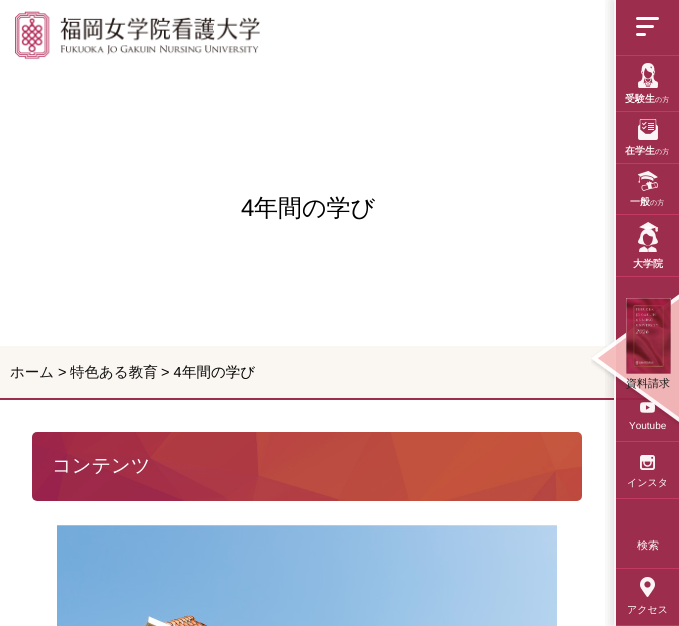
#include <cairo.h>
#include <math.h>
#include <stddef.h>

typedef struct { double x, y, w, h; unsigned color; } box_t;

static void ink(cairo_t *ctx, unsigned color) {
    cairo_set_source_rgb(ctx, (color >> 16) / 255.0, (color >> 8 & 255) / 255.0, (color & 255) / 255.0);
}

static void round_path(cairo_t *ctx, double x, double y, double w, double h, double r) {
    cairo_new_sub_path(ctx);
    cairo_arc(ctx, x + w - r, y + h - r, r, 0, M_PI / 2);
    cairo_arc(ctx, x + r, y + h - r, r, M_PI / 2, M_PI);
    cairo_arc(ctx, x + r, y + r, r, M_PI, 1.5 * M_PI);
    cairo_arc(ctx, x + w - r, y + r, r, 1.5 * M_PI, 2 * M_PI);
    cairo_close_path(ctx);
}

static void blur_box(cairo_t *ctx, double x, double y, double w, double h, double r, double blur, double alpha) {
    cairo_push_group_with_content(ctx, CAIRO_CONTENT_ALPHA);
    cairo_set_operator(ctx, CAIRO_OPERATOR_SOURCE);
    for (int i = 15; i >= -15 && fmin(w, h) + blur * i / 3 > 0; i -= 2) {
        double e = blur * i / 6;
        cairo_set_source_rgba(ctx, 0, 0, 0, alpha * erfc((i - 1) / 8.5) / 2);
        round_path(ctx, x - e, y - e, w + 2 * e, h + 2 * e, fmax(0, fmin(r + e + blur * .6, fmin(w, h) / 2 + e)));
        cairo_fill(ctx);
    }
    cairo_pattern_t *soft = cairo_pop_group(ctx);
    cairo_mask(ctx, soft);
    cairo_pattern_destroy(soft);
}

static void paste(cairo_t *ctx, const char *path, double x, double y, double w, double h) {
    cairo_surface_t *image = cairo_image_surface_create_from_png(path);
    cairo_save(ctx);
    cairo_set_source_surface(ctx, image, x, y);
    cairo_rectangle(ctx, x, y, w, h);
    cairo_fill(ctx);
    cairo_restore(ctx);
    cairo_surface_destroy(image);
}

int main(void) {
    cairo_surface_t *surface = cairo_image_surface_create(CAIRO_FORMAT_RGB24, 679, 626);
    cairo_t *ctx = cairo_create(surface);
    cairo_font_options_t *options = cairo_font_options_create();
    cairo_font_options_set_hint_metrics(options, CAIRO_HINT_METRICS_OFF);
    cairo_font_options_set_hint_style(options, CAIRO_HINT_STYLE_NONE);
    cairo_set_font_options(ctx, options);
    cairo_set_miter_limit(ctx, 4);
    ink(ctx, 0xFFFFFF);
    cairo_paint(ctx);
    ink(ctx, 0x9D2D4D);
    cairo_rectangle(ctx, 616, 0, 63, 625);
    cairo_fill(ctx);
    ink(ctx, 0xFAF5F6);
    cairo_rectangle(ctx, 614, 0, 2, 626);
    cairo_fill(ctx);
    paste(ctx, "media/1.png", 15, 11, 245, 49);
    cairo_select_font_face(ctx, "Liberation Sans", CAIRO_FONT_SLANT_NORMAL, CAIRO_FONT_WEIGHT_NORMAL);
    cairo_set_font_size(ctx, 24);
    ink(ctx, 0x000000);
    cairo_move_to(ctx, 241, 216);
    cairo_show_text(ctx, "4");
    cairo_select_font_face(ctx, "WenQuanYi Zen Hei Medium", CAIRO_FONT_SLANT_NORMAL, CAIRO_FONT_WEIGHT_NORMAL);
    cairo_move_to(ctx, 254, 216);
    cairo_show_text(ctx, "年間の学び");
    {
        static const box_t items[] = {
            {0, 346, 614, 52, 0xFAF6F2},
            {0, 398, 614, 2, 0x9D2D4D},
            {614, 398, 65, 2, 0x982344},
            {614, 398, 2, 2, 0xFAF4F6},
        };
        for (size_t i = 0; i < sizeof items / sizeof *items; i++) {
            ink(ctx, items[i].color);
            cairo_rectangle(ctx, items[i].x, items[i].y, items[i].w, items[i].h);
            cairo_fill(ctx);
        }
    }
    cairo_save(ctx);
    cairo_rectangle(ctx, 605, 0, 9, 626);
    cairo_clip(ctx);
    ink(ctx, 0x000000);
    blur_box(ctx, 614, 0, 65, 626, 0, 7.5, 0.19);
    cairo_restore(ctx);
    ink(ctx, 0xFFFFFF);
    round_path(ctx, 636, 17, 23, 3, 1.5);
    cairo_fill(ctx);
    round_path(ctx, 636, 25, 18, 3, 1.5);
    cairo_fill(ctx);
    round_path(ctx, 636, 33, 10, 3, 1.5);
    cairo_fill(ctx);
    ink(ctx, 0xC23A61);
    cairo_rectangle(ctx, 616, 55, 63, 1);
    cairo_fill(ctx);
    cairo_rectangle(ctx, 616, 111, 63, 1);
    cairo_fill(ctx);
    paste(ctx, "media/2.png", 638, 63, 20, 25);
    cairo_select_font_face(ctx, "WenQuanYi Zen Hei", CAIRO_FONT_SLANT_NORMAL, CAIRO_FONT_WEIGHT_BOLD);
    cairo_set_font_size(ctx, 10);
    ink(ctx, 0xFFFFFF);
    cairo_move_to(ctx, 625, 102);
    cairo_show_text(ctx, "受験生");
    cairo_select_font_face(ctx, "WenQuanYi Zen Hei Medium", CAIRO_FONT_SLANT_NORMAL, CAIRO_FONT_WEIGHT_NORMAL);
    cairo_set_font_size(ctx, 7);
    cairo_move_to(ctx, 655, 102);
    cairo_show_text(ctx, "の方");
    ink(ctx, 0xC23A61);
    cairo_rectangle(ctx, 616, 163, 63, 1);
    cairo_fill(ctx);
    paste(ctx, "media/3.png", 638, 119, 20, 21);
    cairo_select_font_face(ctx, "WenQuanYi Zen Hei", CAIRO_FONT_SLANT_NORMAL, CAIRO_FONT_WEIGHT_BOLD);
    cairo_set_font_size(ctx, 10);
    ink(ctx, 0xFFFFFF);
    cairo_move_to(ctx, 625, 154);
    cairo_show_text(ctx, "在学生");
    cairo_select_font_face(ctx, "WenQuanYi Zen Hei Medium", CAIRO_FONT_SLANT_NORMAL, CAIRO_FONT_WEIGHT_NORMAL);
    cairo_set_font_size(ctx, 7);
    cairo_move_to(ctx, 655, 154);
    cairo_show_text(ctx, "の方");
    ink(ctx, 0xC23A61);
    cairo_rectangle(ctx, 616, 214, 63, 1);
    cairo_fill(ctx);
    paste(ctx, "media/4.png", 638, 171, 20, 20);
    cairo_select_font_face(ctx, "WenQuanYi Zen Hei", CAIRO_FONT_SLANT_NORMAL, CAIRO_FONT_WEIGHT_BOLD);
    cairo_set_font_size(ctx, 10);
    ink(ctx, 0xFFFFFF);
    cairo_move_to(ctx, 630, 205);
    cairo_show_text(ctx, "一般");
    cairo_select_font_face(ctx, "WenQuanYi Zen Hei Medium", CAIRO_FONT_SLANT_NORMAL, CAIRO_FONT_WEIGHT_NORMAL);
    cairo_set_font_size(ctx, 7);
    cairo_move_to(ctx, 650, 205);
    cairo_show_text(ctx, "の方");
    ink(ctx, 0xC23A61);
    cairo_rectangle(ctx, 616, 276, 63, 1);
    cairo_fill(ctx);
    paste(ctx, "media/5.png", 638, 222, 20, 30);
    cairo_select_font_face(ctx, "WenQuanYi Zen Hei", CAIRO_FONT_SLANT_NORMAL, CAIRO_FONT_WEIGHT_BOLD);
    cairo_set_font_size(ctx, 10);
    ink(ctx, 0xFFFFFF);
    cairo_move_to(ctx, 633, 267);
    cairo_show_text(ctx, "大学院");
    paste(ctx, "media/6.png", 591, 294, 88, 132);
    paste(ctx, "media/7.png", 626, 298, 45, 76);
    cairo_select_font_face(ctx, "WenQuanYi Zen Hei Medium", CAIRO_FONT_SLANT_NORMAL, CAIRO_FONT_WEIGHT_NORMAL);
    cairo_set_font_size(ctx, 11);
    ink(ctx, 0x1D1C1C);
    cairo_move_to(ctx, 626, 387);
    cairo_show_text(ctx, "資料請求");
    ink(ctx, 0xC23A61);
    cairo_rectangle(ctx, 616, 441, 63, 1);
    cairo_fill(ctx);
    paste(ctx, "media/8.png", 640, 402, 15, 11);
    cairo_select_font_face(ctx, "Liberation Sans", CAIRO_FONT_SLANT_NORMAL, CAIRO_FONT_WEIGHT_NORMAL);
    cairo_set_font_size(ctx, 10);
    ink(ctx, 0xFFFFFF);
    cairo_move_to(ctx, 629, 429);
    cairo_show_text(ctx, "Youtube");
    ink(ctx, 0xC23A61);
    cairo_rectangle(ctx, 616, 498, 63, 1);
    cairo_fill(ctx);
    paste(ctx, "media/9.png", 640, 455, 15, 15);
    cairo_select_font_face(ctx, "WenQuanYi Zen Hei Medium", CAIRO_FONT_SLANT_NORMAL, CAIRO_FONT_WEIGHT_NORMAL);
    ink(ctx, 0xFFFFFF);
    cairo_move_to(ctx, 627, 486);
    cairo_show_text(ctx, "インスタ");
    ink(ctx, 0xC23A61);
    cairo_rectangle(ctx, 616, 568, 63, 1);
    cairo_fill(ctx);
    cairo_set_font_size(ctx, 11);
    ink(ctx, 0xFFFFFF);
    cairo_move_to(ctx, 637, 549);
    cairo_show_text(ctx, "検索");
    ink(ctx, 0xC23A61);
    cairo_rectangle(ctx, 616, 625, 63, 1);
    cairo_fill(ctx);
    paste(ctx, "media/10.png", 640, 577, 15, 20);
    cairo_set_font_size(ctx, 10);
    ink(ctx, 0xFFFFFF);
    cairo_move_to(ctx, 627, 613);
    cairo_show_text(ctx, "アクセス");
    cairo_set_font_size(ctx, 14.5);
    ink(ctx, 0x111111);
    cairo_move_to(ctx, 10, 377);
    cairo_show_text(ctx, "ホーム");
    cairo_select_font_face(ctx, "Liberation Sans", CAIRO_FONT_SLANT_NORMAL, CAIRO_FONT_WEIGHT_NORMAL);
    ink(ctx, 0x000000);
    cairo_move_to(ctx, 58, 377);
    cairo_show_text(ctx, ">");
    cairo_select_font_face(ctx, "WenQuanYi Zen Hei Medium", CAIRO_FONT_SLANT_NORMAL, CAIRO_FONT_WEIGHT_NORMAL);
    ink(ctx, 0x111111);
    cairo_move_to(ctx, 70, 377);
    cairo_show_text(ctx, "特色ある教育");
    cairo_select_font_face(ctx, "Liberation Sans", CAIRO_FONT_SLANT_NORMAL, CAIRO_FONT_WEIGHT_NORMAL);
    ink(ctx, 0x000000);
    cairo_move_to(ctx, 161, 377);
    cairo_show_text(ctx, "> 4");
    cairo_select_font_face(ctx, "WenQuanYi Zen Hei Medium", CAIRO_FONT_SLANT_NORMAL, CAIRO_FONT_WEIGHT_NORMAL);
    cairo_move_to(ctx, 182, 377);
    cairo_show_text(ctx, "年間の学び");
    paste(ctx, "media/11.png", 32, 432, 550, 69);
    cairo_set_font_size(ctx, 19.25);
    ink(ctx, 0xFFFFFF);
    cairo_move_to(ctx, 52, 472);
    cairo_show_text(ctx, "コンテンツ");
    paste(ctx, "media/12.png", 57, 525, 500, 101);
    cairo_surface_write_to_png(surface, "image.png");
    cairo_font_options_destroy(options);
    cairo_destroy(ctx);
    cairo_surface_destroy(surface);
    return 0;
}
